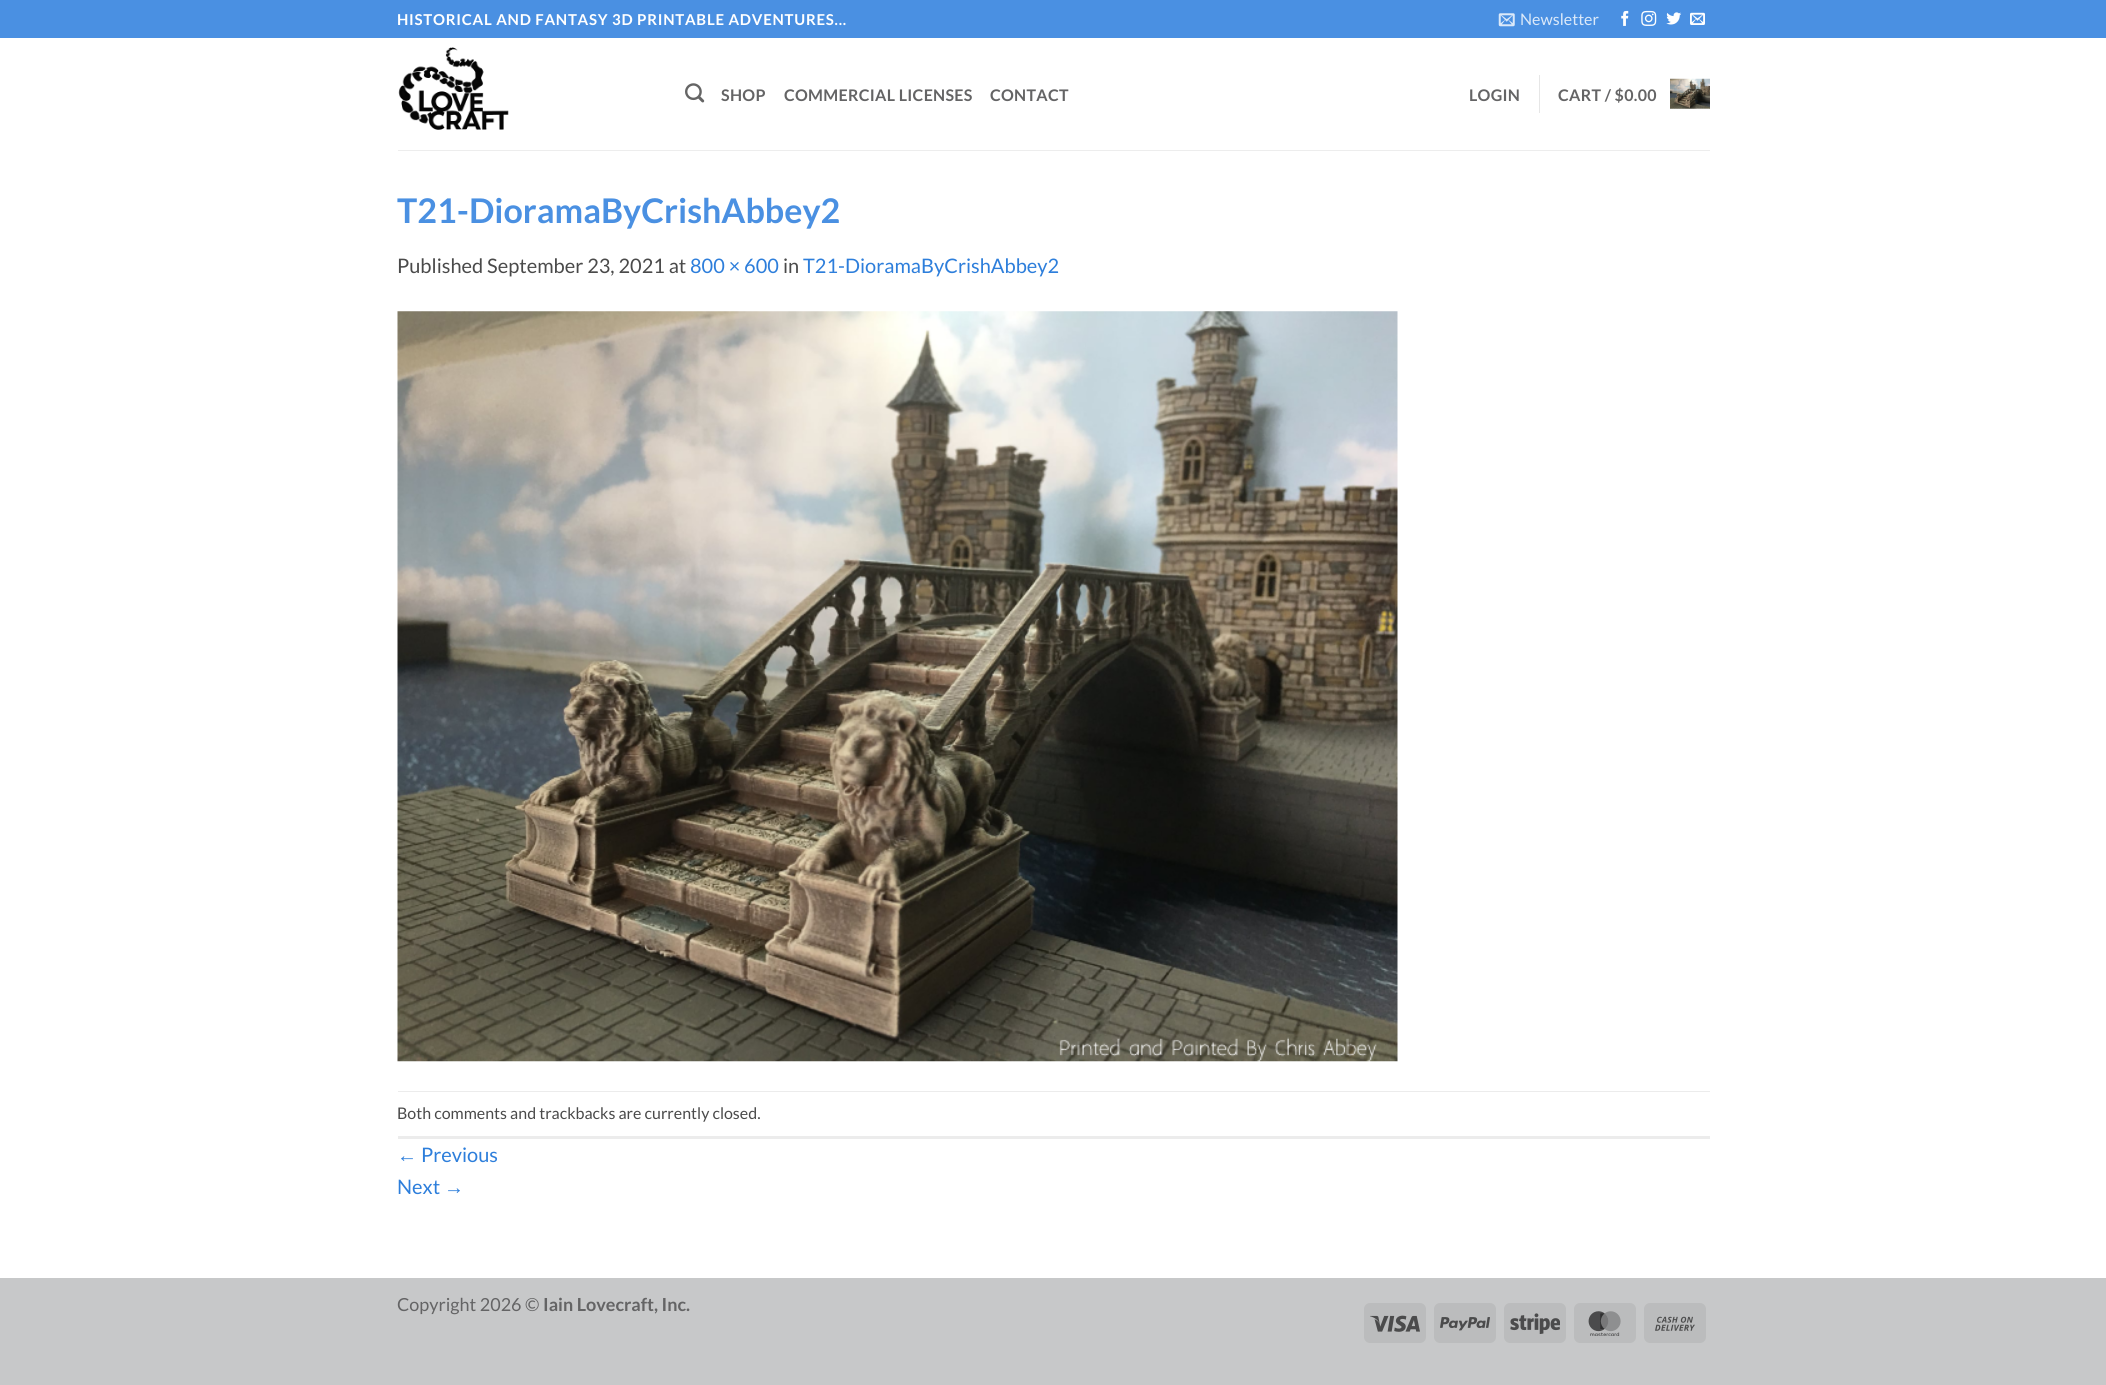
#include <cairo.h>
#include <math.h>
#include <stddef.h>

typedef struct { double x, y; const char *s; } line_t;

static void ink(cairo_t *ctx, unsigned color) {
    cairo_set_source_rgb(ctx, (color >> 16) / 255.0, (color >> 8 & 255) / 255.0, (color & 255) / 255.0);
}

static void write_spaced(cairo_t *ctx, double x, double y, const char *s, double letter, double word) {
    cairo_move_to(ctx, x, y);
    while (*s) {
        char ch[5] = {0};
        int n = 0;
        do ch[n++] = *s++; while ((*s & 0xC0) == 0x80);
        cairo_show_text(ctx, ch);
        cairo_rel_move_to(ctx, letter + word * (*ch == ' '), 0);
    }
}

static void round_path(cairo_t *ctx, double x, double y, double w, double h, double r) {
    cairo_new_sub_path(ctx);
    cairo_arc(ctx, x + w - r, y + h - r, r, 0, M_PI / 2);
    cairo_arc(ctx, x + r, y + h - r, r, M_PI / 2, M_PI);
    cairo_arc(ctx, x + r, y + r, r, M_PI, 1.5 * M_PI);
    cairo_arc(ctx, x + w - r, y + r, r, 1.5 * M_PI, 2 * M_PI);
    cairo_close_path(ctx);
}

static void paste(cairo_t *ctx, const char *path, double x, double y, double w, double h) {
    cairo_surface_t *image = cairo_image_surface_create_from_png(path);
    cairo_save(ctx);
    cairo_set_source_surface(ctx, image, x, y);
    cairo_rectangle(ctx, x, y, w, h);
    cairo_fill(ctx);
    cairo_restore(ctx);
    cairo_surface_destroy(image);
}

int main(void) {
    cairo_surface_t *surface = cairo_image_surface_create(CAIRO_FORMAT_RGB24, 2106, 1385);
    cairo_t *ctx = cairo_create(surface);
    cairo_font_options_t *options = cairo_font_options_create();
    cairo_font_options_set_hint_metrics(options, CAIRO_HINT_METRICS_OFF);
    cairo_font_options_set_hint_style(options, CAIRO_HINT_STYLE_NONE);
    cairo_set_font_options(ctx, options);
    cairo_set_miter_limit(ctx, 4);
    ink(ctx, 0xC7C8C9);
    cairo_paint(ctx);
    ink(ctx, 0xFFFFFF);
    cairo_rectangle(ctx, 0, 38, 2106, 1240);
    cairo_fill(ctx);
    ink(ctx, 0x4A90E2);
    cairo_rectangle(ctx, 0, 0, 2106, 38);
    cairo_fill(ctx);
    cairo_select_font_face(ctx, "Lato", CAIRO_FONT_SLANT_NORMAL, CAIRO_FONT_WEIGHT_BOLD);
    cairo_set_font_size(ctx, 15);
    ink(ctx, 0xFFFFFF);
    write_spaced(ctx, 397, 25, "HISTORICAL AND FANTASY 3D PRINTABLE ADVENTURES...", 0.75, 0);
    paste(ctx, "media/1.png", 1498, 13, 17, 14);
    cairo_select_font_face(ctx, "Lato", CAIRO_FONT_SLANT_NORMAL, CAIRO_FONT_WEIGHT_NORMAL);
    cairo_set_font_size(ctx, 16);
    ink(ctx, 0xDBE9F9);
    cairo_move_to(ctx, 1520, 25);
    cairo_show_text(ctx, "Newsletter");
    paste(ctx, "media/2.png", 1621, 10, 8, 16);
    paste(ctx, "media/3.png", 1641, 10, 16, 16);
    paste(ctx, "media/4.png", 1666, 12, 16, 13);
    paste(ctx, "media/5.png", 1690, 12, 15, 13);
    paste(ctx, "media/6.png", 398, 47, 111, 83);
    paste(ctx, "media/7.png", 685, 83, 20, 20);
    cairo_select_font_face(ctx, "Lato", CAIRO_FONT_SLANT_NORMAL, CAIRO_FONT_WEIGHT_BOLD);
    ink(ctx, 0x646465);
    {
        static const line_t items[] = {
            {721, 101, "SHOP"},
            {784, 101, "COMMERCIAL LICENSES"},
            {990, 101, "CONTACT"},
            {1469, 101, "LOGIN"},
        };
        for (size_t i = 0; i < sizeof items / sizeof *items; i++) {
            write_spaced(ctx, items[i].x, items[i].y, items[i].s, 0.3, 0);
        }
    }
    ink(ctx, 0xE6E6E6);
    cairo_rectangle(ctx, 1539, 75, 1, 38);
    cairo_fill(ctx);
    ink(ctx, 0x646465);
    write_spaced(ctx, 1558, 101, "CART / $0.00", 0.3, 0);
    paste(ctx, "media/8.png", 1670, 78, 40, 31);
    ink(ctx, 0xEDEDED);
    cairo_rectangle(ctx, 398, 150, 1312, 1);
    cairo_fill(ctx);
    cairo_set_font_size(ctx, 34);
    ink(ctx, 0x4A90E2);
    cairo_move_to(ctx, 397, 223);
    cairo_show_text(ctx, "T21-DioramaByCrishAbbey2");
    cairo_select_font_face(ctx, "Lato", CAIRO_FONT_SLANT_NORMAL, CAIRO_FONT_WEIGHT_NORMAL);
    cairo_set_font_size(ctx, 20);
    ink(ctx, 0x4A4A4A);
    cairo_move_to(ctx, 397, 273);
    cairo_show_text(ctx, "Published September 23, 2021 at");
    ink(ctx, 0x2D7EDB);
    cairo_move_to(ctx, 690, 273);
    cairo_show_text(ctx, "800 × 600");
    ink(ctx, 0x4A4A4A);
    cairo_move_to(ctx, 783, 273);
    cairo_show_text(ctx, "in");
    ink(ctx, 0x2D7EDB);
    cairo_move_to(ctx, 803, 273);
    cairo_show_text(ctx, "T21-DioramaByCrishAbbey2");
    paste(ctx, "media/9.png", 397, 311, 1001, 751);
    ink(ctx, 0xECECEC);
    cairo_rectangle(ctx, 398, 1091, 1312, 1);
    cairo_fill(ctx);
    cairo_rectangle(ctx, 398, 1136, 1312, 3);
    cairo_fill(ctx);
    cairo_set_font_size(ctx, 16);
    ink(ctx, 0x4A4A4A);
    cairo_move_to(ctx, 397, 1119);
    cairo_show_text(ctx, "Both comments and trackbacks are currently closed.");
    cairo_select_font_face(ctx, "Liberation Sans", CAIRO_FONT_SLANT_NORMAL, CAIRO_FONT_WEIGHT_NORMAL);
    cairo_set_font_size(ctx, 20);
    ink(ctx, 0x2D7EDB);
    cairo_move_to(ctx, 397, 1162);
    cairo_show_text(ctx, "←");
    cairo_select_font_face(ctx, "Lato", CAIRO_FONT_SLANT_NORMAL, CAIRO_FONT_WEIGHT_NORMAL);
    cairo_move_to(ctx, 421, 1162);
    cairo_show_text(ctx, "Previous");
    cairo_move_to(ctx, 397, 1194);
    cairo_show_text(ctx, "Next");
    cairo_select_font_face(ctx, "Liberation Sans", CAIRO_FONT_SLANT_NORMAL, CAIRO_FONT_WEIGHT_NORMAL);
    cairo_move_to(ctx, 444, 1194);
    cairo_show_text(ctx, "→");
    cairo_select_font_face(ctx, "Lato", CAIRO_FONT_SLANT_NORMAL, CAIRO_FONT_WEIGHT_NORMAL);
    cairo_set_font_size(ctx, 18);
    ink(ctx, 0x646465);
    cairo_move_to(ctx, 397, 1311);
    cairo_show_text(ctx, "Copyright 2026 ©");
    cairo_select_font_face(ctx, "Lato", CAIRO_FONT_SLANT_NORMAL, CAIRO_FONT_WEIGHT_BOLD);
    cairo_move_to(ctx, 543, 1311);
    cairo_show_text(ctx, "Iain Lovecraft, Inc.");
    ink(ctx, 0xBBBCBD);
    round_path(ctx, 1364, 1303, 62, 40, 6);
    cairo_fill(ctx);
    paste(ctx, "media/10.png", 1370, 1315, 50, 17);
    round_path(ctx, 1434, 1303, 62, 40, 6);
    cairo_fill(ctx);
    paste(ctx, "media/11.png", 1440, 1317, 50, 14);
    round_path(ctx, 1504, 1303, 62, 40, 6);
    cairo_fill(ctx);
    paste(ctx, "media/12.png", 1510, 1313, 50, 21);
    round_path(ctx, 1574, 1303, 62, 40, 6);
    cairo_fill(ctx);
    paste(ctx, "media/13.png", 1588, 1311, 33, 25);
    round_path(ctx, 1644, 1303, 62, 40, 6);
    cairo_fill(ctx);
    paste(ctx, "media/14.png", 1655, 1316, 40, 15);
    cairo_surface_write_to_png(surface, "image.png");
    cairo_font_options_destroy(options);
    cairo_destroy(ctx);
    cairo_surface_destroy(surface);
    return 0;
}
